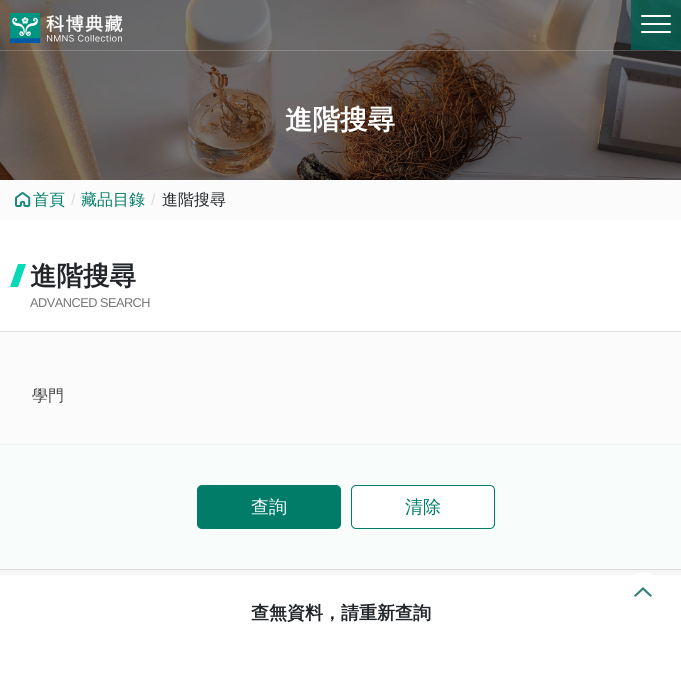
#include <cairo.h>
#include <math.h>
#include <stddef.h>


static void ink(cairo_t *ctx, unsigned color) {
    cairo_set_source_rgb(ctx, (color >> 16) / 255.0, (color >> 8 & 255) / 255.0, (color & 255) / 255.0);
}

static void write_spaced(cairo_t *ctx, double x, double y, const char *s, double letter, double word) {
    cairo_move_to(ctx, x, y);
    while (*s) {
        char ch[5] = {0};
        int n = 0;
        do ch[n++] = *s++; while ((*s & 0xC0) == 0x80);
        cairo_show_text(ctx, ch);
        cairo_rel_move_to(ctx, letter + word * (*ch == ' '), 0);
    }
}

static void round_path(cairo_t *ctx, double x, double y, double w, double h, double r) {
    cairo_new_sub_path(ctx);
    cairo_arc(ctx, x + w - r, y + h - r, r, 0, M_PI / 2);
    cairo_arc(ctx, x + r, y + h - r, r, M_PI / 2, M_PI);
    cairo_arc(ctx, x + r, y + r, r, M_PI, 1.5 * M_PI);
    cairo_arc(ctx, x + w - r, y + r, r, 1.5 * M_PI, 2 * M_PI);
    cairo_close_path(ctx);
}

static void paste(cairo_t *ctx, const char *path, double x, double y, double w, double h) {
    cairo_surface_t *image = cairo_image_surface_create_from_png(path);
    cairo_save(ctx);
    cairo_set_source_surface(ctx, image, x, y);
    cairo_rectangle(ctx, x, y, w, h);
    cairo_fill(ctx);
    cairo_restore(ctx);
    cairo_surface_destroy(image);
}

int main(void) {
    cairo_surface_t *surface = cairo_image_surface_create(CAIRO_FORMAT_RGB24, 681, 680);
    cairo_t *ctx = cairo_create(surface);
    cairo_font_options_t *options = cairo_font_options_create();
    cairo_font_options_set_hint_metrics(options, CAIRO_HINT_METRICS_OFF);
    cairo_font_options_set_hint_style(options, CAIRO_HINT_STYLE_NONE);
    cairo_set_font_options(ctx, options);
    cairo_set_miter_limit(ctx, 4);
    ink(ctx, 0xFFFFFF);
    cairo_paint(ctx);
    paste(ctx, "media/2.png", 0, 0, 681, 180);
    cairo_set_source_rgba(ctx, 1, 1, 1, 0.2);
    cairo_rectangle(ctx, 0, 50, 681, 1);
    cairo_fill(ctx);
    paste(ctx, "media/1.png", 10, 13, 113, 30);
    cairo_set_source_rgba(ctx, 0, 0.373, 0.318, 0.8);
    cairo_rectangle(ctx, 631, 0, 50, 50);
    cairo_fill(ctx);
    ink(ctx, 0xFFFFFF);
    round_path(ctx, 641, 15, 30, 2, 1);
    cairo_fill(ctx);
    round_path(ctx, 641, 23, 30, 2, 1);
    cairo_fill(ctx);
    round_path(ctx, 641, 31, 30, 2, 1);
    cairo_fill(ctx);
    cairo_select_font_face(ctx, "WenQuanYi Zen Hei", CAIRO_FONT_SLANT_NORMAL, CAIRO_FONT_WEIGHT_BOLD);
    cairo_set_font_size(ctx, 27.5);
    cairo_move_to(ctx, 285, 129);
    cairo_show_text(ctx, "進階搜尋");
    ink(ctx, 0xFBFBFB);
    cairo_rectangle(ctx, 0, 180, 681, 40);
    cairo_fill(ctx);
    paste(ctx, "media/3.png", 15, 192, 16, 15);
    cairo_select_font_face(ctx, "WenQuanYi Zen Hei Medium", CAIRO_FONT_SLANT_NORMAL, CAIRO_FONT_WEIGHT_NORMAL);
    cairo_set_font_size(ctx, 16);
    ink(ctx, 0x007C69);
    cairo_move_to(ctx, 33, 205);
    cairo_show_text(ctx, "首頁");
    cairo_select_font_face(ctx, "Liberation Sans", CAIRO_FONT_SLANT_NORMAL, CAIRO_FONT_WEIGHT_NORMAL);
    ink(ctx, 0xDDDDDD);
    cairo_move_to(ctx, 71, 205);
    cairo_show_text(ctx, "/");
    cairo_select_font_face(ctx, "WenQuanYi Zen Hei Medium", CAIRO_FONT_SLANT_NORMAL, CAIRO_FONT_WEIGHT_NORMAL);
    ink(ctx, 0x007C69);
    cairo_move_to(ctx, 81, 205);
    cairo_show_text(ctx, "藏品目錄");
    cairo_select_font_face(ctx, "Liberation Sans", CAIRO_FONT_SLANT_NORMAL, CAIRO_FONT_WEIGHT_NORMAL);
    ink(ctx, 0xDDDDDD);
    cairo_move_to(ctx, 151, 205);
    cairo_show_text(ctx, "/");
    cairo_select_font_face(ctx, "WenQuanYi Zen Hei Medium", CAIRO_FONT_SLANT_NORMAL, CAIRO_FONT_WEIGHT_NORMAL);
    ink(ctx, 0x212529);
    cairo_move_to(ctx, 162, 205);
    cairo_show_text(ctx, "進階搜尋");
    ink(ctx, 0x05D9B8);
    cairo_new_path(ctx);
    cairo_move_to(ctx, 18, 264);
    cairo_line_to(ctx, 26, 264);
    cairo_line_to(ctx, 18, 287);
    cairo_line_to(ctx, 10, 287);
    cairo_close_path(ctx);
    cairo_fill(ctx);
    cairo_select_font_face(ctx, "WenQuanYi Zen Hei", CAIRO_FONT_SLANT_NORMAL, CAIRO_FONT_WEIGHT_BOLD);
    cairo_set_font_size(ctx, 26.5);
    ink(ctx, 0x212529);
    cairo_move_to(ctx, 30, 285);
    cairo_show_text(ctx, "進階搜尋");
    cairo_select_font_face(ctx, "Liberation Sans", CAIRO_FONT_SLANT_NORMAL, CAIRO_FONT_WEIGHT_NORMAL);
    cairo_set_font_size(ctx, 12.75);
    ink(ctx, 0x757575);
    write_spaced(ctx, 30, 307, "ADVANCED SEARCH", -0.5, 0);
    ink(ctx, 0xFBFBFB);
    cairo_rectangle(ctx, 0, 332, 681, 112);
    cairo_fill(ctx);
    ink(ctx, 0xDDDDDD);
    cairo_rectangle(ctx, 0, 331, 681, 1);
    cairo_fill(ctx);
    cairo_select_font_face(ctx, "WenQuanYi Zen Hei Medium", CAIRO_FONT_SLANT_NORMAL, CAIRO_FONT_WEIGHT_NORMAL);
    cairo_set_font_size(ctx, 16);
    ink(ctx, 0x464646);
    cairo_move_to(ctx, 32, 401);
    cairo_show_text(ctx, "學門");
    ink(ctx, 0xF1F1F1);
    cairo_rectangle(ctx, 0, 444, 681, 1);
    cairo_fill(ctx);
    ink(ctx, 0xF8FCFB);
    cairo_rectangle(ctx, 0, 445, 681, 124);
    cairo_fill(ctx);
    ink(ctx, 0x007C69);
    round_path(ctx, 197.5, 485.5, 143, 43, 4.5);
    cairo_fill_preserve(ctx);
    cairo_set_line_width(ctx, 1);
    cairo_stroke(ctx);
    cairo_set_font_size(ctx, 18);
    ink(ctx, 0xFFFFFF);
    cairo_move_to(ctx, 251, 513);
    cairo_show_text(ctx, "查詢");
    round_path(ctx, 351.5, 485.5, 143, 43, 4.5);
    cairo_fill_preserve(ctx);
    ink(ctx, 0x007C69);
    cairo_stroke(ctx);
    cairo_move_to(ctx, 405, 513);
    cairo_show_text(ctx, "清除");
    ink(ctx, 0xF6F6F6);
    cairo_rectangle(ctx, 0, 570, 681, 5);
    cairo_fill(ctx);
    ink(ctx, 0xD9D9D9);
    cairo_rectangle(ctx, 0, 569, 681, 1);
    cairo_fill(ctx);
    cairo_select_font_face(ctx, "WenQuanYi Zen Hei", CAIRO_FONT_SLANT_NORMAL, CAIRO_FONT_WEIGHT_BOLD);
    ink(ctx, 0x212529);
    cairo_move_to(ctx, 251, 619);
    cairo_show_text(ctx, "查無資料，請重新查詢");
    ink(ctx, 0xFFFFFF);
    cairo_new_path(ctx);
    cairo_move_to(ctx, 663, 592);
    cairo_curve_to(ctx, 663, 618, 623, 618, 623, 592);
    cairo_curve_to(ctx, 623, 566, 663, 566, 663, 592);
    cairo_close_path(ctx);
    cairo_fill(ctx);
    ink(ctx, 0x328376);
    cairo_new_path(ctx);
    cairo_move_to(ctx, 652, 595.5);
    cairo_line_to(ctx, 650.5, 597);
    cairo_line_to(ctx, 643, 590);
    cairo_line_to(ctx, 635.5, 597);
    cairo_line_to(ctx, 634, 595.5);
    cairo_line_to(ctx, 643, 587);
    cairo_close_path(ctx);
    cairo_fill(ctx);
    cairo_surface_write_to_png(surface, "image.png");
    cairo_font_options_destroy(options);
    cairo_destroy(ctx);
    cairo_surface_destroy(surface);
    return 0;
}
